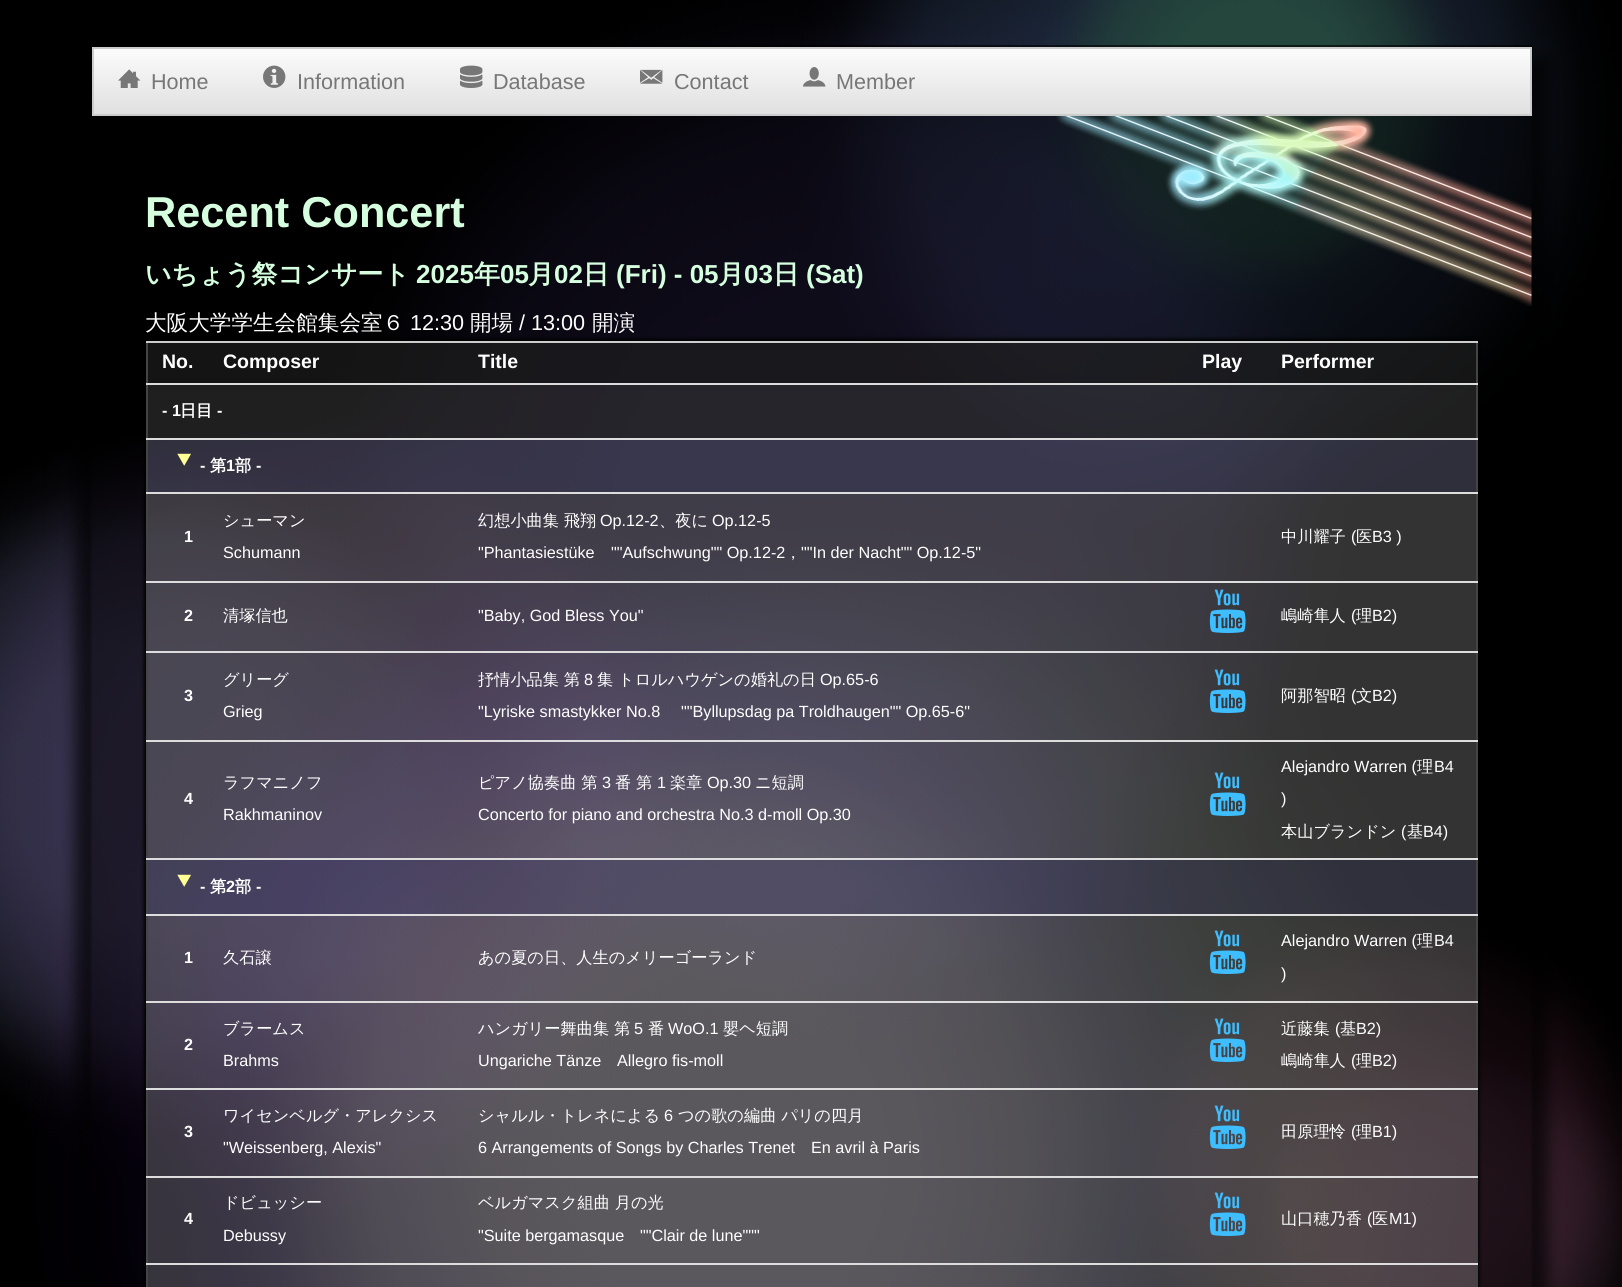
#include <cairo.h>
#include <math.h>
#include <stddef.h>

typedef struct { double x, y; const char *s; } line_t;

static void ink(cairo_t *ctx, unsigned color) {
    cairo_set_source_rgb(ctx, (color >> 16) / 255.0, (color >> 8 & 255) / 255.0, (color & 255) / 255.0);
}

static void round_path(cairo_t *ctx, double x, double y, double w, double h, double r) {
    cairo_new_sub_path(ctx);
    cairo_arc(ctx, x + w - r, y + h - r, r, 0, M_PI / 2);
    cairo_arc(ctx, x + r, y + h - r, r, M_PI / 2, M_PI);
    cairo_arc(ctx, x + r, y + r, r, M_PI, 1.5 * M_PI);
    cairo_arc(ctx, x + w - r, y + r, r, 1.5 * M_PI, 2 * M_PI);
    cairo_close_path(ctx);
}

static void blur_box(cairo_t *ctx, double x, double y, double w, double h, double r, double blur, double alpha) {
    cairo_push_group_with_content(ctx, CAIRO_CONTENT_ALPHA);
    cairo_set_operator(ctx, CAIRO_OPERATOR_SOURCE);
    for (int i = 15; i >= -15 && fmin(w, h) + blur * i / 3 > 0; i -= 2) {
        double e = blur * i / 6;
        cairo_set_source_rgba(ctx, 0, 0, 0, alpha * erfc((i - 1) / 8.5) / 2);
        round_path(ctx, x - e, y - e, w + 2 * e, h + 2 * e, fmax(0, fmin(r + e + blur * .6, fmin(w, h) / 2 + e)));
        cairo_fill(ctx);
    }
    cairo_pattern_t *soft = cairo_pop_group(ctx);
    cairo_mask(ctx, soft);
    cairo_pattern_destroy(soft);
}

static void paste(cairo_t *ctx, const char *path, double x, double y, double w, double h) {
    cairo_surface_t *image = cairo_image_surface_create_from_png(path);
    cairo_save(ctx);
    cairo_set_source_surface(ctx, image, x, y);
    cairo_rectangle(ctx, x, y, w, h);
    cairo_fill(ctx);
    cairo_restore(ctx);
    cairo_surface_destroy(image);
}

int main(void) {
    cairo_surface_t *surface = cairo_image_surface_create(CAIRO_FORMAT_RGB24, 1622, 1287);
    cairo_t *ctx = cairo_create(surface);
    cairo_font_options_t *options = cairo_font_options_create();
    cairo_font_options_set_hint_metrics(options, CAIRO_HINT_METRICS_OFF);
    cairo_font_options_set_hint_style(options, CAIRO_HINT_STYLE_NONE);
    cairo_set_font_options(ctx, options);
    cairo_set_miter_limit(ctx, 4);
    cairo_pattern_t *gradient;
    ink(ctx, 0xFFFFFF);
    cairo_paint(ctx);
    paste(ctx, "media/1.png", 0, 0, 1622, 1287);
    cairo_save(ctx);
    cairo_rectangle(ctx, 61, 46, 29, 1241);
    cairo_clip(ctx);
    ink(ctx, 0x000000);
    blur_box(ctx, 75, 60, 1443, 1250, 0, 7.5, 0.7);
    cairo_restore(ctx);
    cairo_save(ctx);
    cairo_rectangle(ctx, 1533, 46, 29, 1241);
    cairo_clip(ctx);
    ink(ctx, 0x000000);
    blur_box(ctx, 105, 60, 1443, 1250, 0, 7.5, 0.7);
    cairo_restore(ctx);
    cairo_set_source_rgba(ctx, 0, 0, 0, 0.5);
    cairo_rectangle(ctx, 90, 45, 1443, 1242);
    cairo_fill(ctx);
    cairo_rectangle(ctx, 91, 46, 1441, 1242);
    cairo_set_source_rgba(ctx, 0, 0, 0, 0.2);
    cairo_stroke(ctx);
    gradient = cairo_pattern_create_linear(812, 48, 812, 114);
    cairo_pattern_add_color_stop_rgba(gradient, 0, 0.988, 0.988, 0.988, 1);
    cairo_pattern_add_color_stop_rgba(gradient, 1, 0.878, 0.878, 0.878, 1);
    cairo_set_source(ctx, gradient);
    cairo_pattern_destroy(gradient);
    cairo_rectangle(ctx, 94, 49, 1436, 65);
    cairo_fill(ctx);
    cairo_rectangle(ctx, 93, 48, 1438, 67);
    ink(ctx, 0xCCCCCC);
    cairo_stroke(ctx);
    cairo_select_font_face(ctx, "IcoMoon", CAIRO_FONT_SLANT_NORMAL, CAIRO_FONT_WEIGHT_NORMAL);
    cairo_set_font_size(ctx, 32);
    ink(ctx, 0x777777);
    cairo_move_to(ctx, 118, 88);
    cairo_show_text(ctx, "I");
    cairo_select_font_face(ctx, "Liberation Sans", CAIRO_FONT_SLANT_NORMAL, CAIRO_FONT_WEIGHT_NORMAL);
    cairo_set_font_size(ctx, 21.6);
    cairo_move_to(ctx, 151, 89);
    cairo_show_text(ctx, "Home");
    cairo_select_font_face(ctx, "IcoMoon", CAIRO_FONT_SLANT_NORMAL, CAIRO_FONT_WEIGHT_NORMAL);
    cairo_set_font_size(ctx, 32);
    cairo_move_to(ctx, 263, 88);
    cairo_show_text(ctx, "i");
    cairo_select_font_face(ctx, "Liberation Sans", CAIRO_FONT_SLANT_NORMAL, CAIRO_FONT_WEIGHT_NORMAL);
    cairo_set_font_size(ctx, 21.6);
    cairo_move_to(ctx, 297, 89);
    cairo_show_text(ctx, "Information");
    cairo_select_font_face(ctx, "IcoMoon", CAIRO_FONT_SLANT_NORMAL, CAIRO_FONT_WEIGHT_NORMAL);
    cairo_set_font_size(ctx, 32);
    cairo_move_to(ctx, 460, 88);
    cairo_show_text(ctx, "D");
    cairo_select_font_face(ctx, "Liberation Sans", CAIRO_FONT_SLANT_NORMAL, CAIRO_FONT_WEIGHT_NORMAL);
    cairo_set_font_size(ctx, 21.6);
    cairo_move_to(ctx, 493, 89);
    cairo_show_text(ctx, "Database");
    cairo_select_font_face(ctx, "IcoMoon", CAIRO_FONT_SLANT_NORMAL, CAIRO_FONT_WEIGHT_NORMAL);
    cairo_set_font_size(ctx, 32);
    cairo_move_to(ctx, 640, 88);
    cairo_show_text(ctx, "@");
    cairo_select_font_face(ctx, "Liberation Sans", CAIRO_FONT_SLANT_NORMAL, CAIRO_FONT_WEIGHT_NORMAL);
    cairo_set_font_size(ctx, 21.6);
    cairo_move_to(ctx, 674, 89);
    cairo_show_text(ctx, "Contact");
    cairo_select_font_face(ctx, "IcoMoon", CAIRO_FONT_SLANT_NORMAL, CAIRO_FONT_WEIGHT_NORMAL);
    cairo_set_font_size(ctx, 32);
    cairo_move_to(ctx, 803, 88);
    cairo_show_text(ctx, "u");
    cairo_select_font_face(ctx, "Liberation Sans", CAIRO_FONT_SLANT_NORMAL, CAIRO_FONT_WEIGHT_NORMAL);
    cairo_set_font_size(ctx, 21.6);
    cairo_move_to(ctx, 836, 89);
    cairo_show_text(ctx, "Member");
    paste(ctx, "media/2.png", 1056, 116, 476, 190);
    cairo_select_font_face(ctx, "Liberation Sans", CAIRO_FONT_SLANT_NORMAL, CAIRO_FONT_WEIGHT_BOLD);
    cairo_set_font_size(ctx, 43.25);
    ink(ctx, 0xD5FFDF);
    cairo_move_to(ctx, 145, 227);
    cairo_show_text(ctx, "Recent Concert");
    cairo_select_font_face(ctx, "WenQuanYi Zen Hei", CAIRO_FONT_SLANT_NORMAL, CAIRO_FONT_WEIGHT_BOLD);
    cairo_set_font_size(ctx, 26);
    cairo_move_to(ctx, 145, 283);
    cairo_show_text(ctx, "いちょう祭コンサート");
    cairo_select_font_face(ctx, "Liberation Sans", CAIRO_FONT_SLANT_NORMAL, CAIRO_FONT_WEIGHT_BOLD);
    cairo_move_to(ctx, 416, 283);
    cairo_show_text(ctx, "2025");
    cairo_select_font_face(ctx, "WenQuanYi Zen Hei", CAIRO_FONT_SLANT_NORMAL, CAIRO_FONT_WEIGHT_BOLD);
    cairo_move_to(ctx, 474, 283);
    cairo_show_text(ctx, "年");
    cairo_select_font_face(ctx, "Liberation Sans", CAIRO_FONT_SLANT_NORMAL, CAIRO_FONT_WEIGHT_BOLD);
    cairo_move_to(ctx, 500, 283);
    cairo_show_text(ctx, "05");
    cairo_select_font_face(ctx, "WenQuanYi Zen Hei", CAIRO_FONT_SLANT_NORMAL, CAIRO_FONT_WEIGHT_BOLD);
    cairo_move_to(ctx, 528, 283);
    cairo_show_text(ctx, "月");
    cairo_select_font_face(ctx, "Liberation Sans", CAIRO_FONT_SLANT_NORMAL, CAIRO_FONT_WEIGHT_BOLD);
    cairo_move_to(ctx, 554, 283);
    cairo_show_text(ctx, "02");
    cairo_select_font_face(ctx, "WenQuanYi Zen Hei", CAIRO_FONT_SLANT_NORMAL, CAIRO_FONT_WEIGHT_BOLD);
    cairo_move_to(ctx, 583, 283);
    cairo_show_text(ctx, "日");
    cairo_select_font_face(ctx, "Liberation Sans", CAIRO_FONT_SLANT_NORMAL, CAIRO_FONT_WEIGHT_BOLD);
    cairo_move_to(ctx, 616, 283);
    cairo_show_text(ctx, "(Fri) - 05");
    cairo_select_font_face(ctx, "WenQuanYi Zen Hei", CAIRO_FONT_SLANT_NORMAL, CAIRO_FONT_WEIGHT_BOLD);
    cairo_move_to(ctx, 718, 283);
    cairo_show_text(ctx, "月");
    cairo_select_font_face(ctx, "Liberation Sans", CAIRO_FONT_SLANT_NORMAL, CAIRO_FONT_WEIGHT_BOLD);
    cairo_move_to(ctx, 744, 283);
    cairo_show_text(ctx, "03");
    cairo_select_font_face(ctx, "WenQuanYi Zen Hei", CAIRO_FONT_SLANT_NORMAL, CAIRO_FONT_WEIGHT_BOLD);
    cairo_move_to(ctx, 773, 283);
    cairo_show_text(ctx, "日");
    cairo_select_font_face(ctx, "Liberation Sans", CAIRO_FONT_SLANT_NORMAL, CAIRO_FONT_WEIGHT_BOLD);
    cairo_move_to(ctx, 806, 283);
    cairo_show_text(ctx, "(Sat)");
    cairo_save(ctx);
    cairo_set_fill_rule(ctx, CAIRO_FILL_RULE_EVEN_ODD);
    cairo_new_path(ctx);
    cairo_move_to(ctx, 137, 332);
    cairo_line_to(ctx, 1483, 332);
    cairo_line_to(ctx, 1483, 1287);
    cairo_line_to(ctx, 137, 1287);
    cairo_close_path(ctx);
    cairo_move_to(ctx, 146, 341);
    cairo_line_to(ctx, 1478, 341);
    cairo_line_to(ctx, 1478, 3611);
    cairo_line_to(ctx, 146, 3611);
    cairo_close_path(ctx);
    cairo_clip(ctx);
    ink(ctx, 0x000000);
    blur_box(ctx, 144, 339, 1332, 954, 0, 2, 1);
    cairo_restore(ctx);
    cairo_select_font_face(ctx, "WenQuanYi Zen Hei Medium", CAIRO_FONT_SLANT_NORMAL, CAIRO_FONT_WEIGHT_NORMAL);
    cairo_set_font_size(ctx, 21.6);
    ink(ctx, 0xFFFFFF);
    cairo_move_to(ctx, 145, 330);
    cairo_show_text(ctx, "大阪大学学生会館集会室６");
    cairo_select_font_face(ctx, "Arimo", CAIRO_FONT_SLANT_NORMAL, CAIRO_FONT_WEIGHT_NORMAL);
    cairo_move_to(ctx, 410, 330);
    cairo_show_text(ctx, "12:30");
    cairo_select_font_face(ctx, "WenQuanYi Zen Hei Medium", CAIRO_FONT_SLANT_NORMAL, CAIRO_FONT_WEIGHT_NORMAL);
    cairo_move_to(ctx, 470, 330);
    cairo_show_text(ctx, "開場");
    cairo_select_font_face(ctx, "Arimo", CAIRO_FONT_SLANT_NORMAL, CAIRO_FONT_WEIGHT_NORMAL);
    cairo_move_to(ctx, 519, 330);
    cairo_show_text(ctx, "/ 13:00");
    cairo_select_font_face(ctx, "WenQuanYi Zen Hei Medium", CAIRO_FONT_SLANT_NORMAL, CAIRO_FONT_WEIGHT_NORMAL);
    cairo_move_to(ctx, 592, 330);
    cairo_show_text(ctx, "開演");
    cairo_save(ctx);
    cairo_set_fill_rule(ctx, CAIRO_FILL_RULE_EVEN_ODD);
    cairo_new_path(ctx);
    cairo_move_to(ctx, 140, 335);
    cairo_line_to(ctx, 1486, 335);
    cairo_line_to(ctx, 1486, 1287);
    cairo_line_to(ctx, 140, 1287);
    cairo_close_path(ctx);
    cairo_move_to(ctx, 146, 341);
    cairo_line_to(ctx, 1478, 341);
    cairo_line_to(ctx, 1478, 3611);
    cairo_line_to(ctx, 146, 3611);
    cairo_close_path(ctx);
    cairo_clip(ctx);
    ink(ctx, 0x000000);
    blur_box(ctx, 147, 342, 1332, 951, 0, 2, 1);
    cairo_restore(ctx);
    cairo_set_source_rgba(ctx, 1, 1, 1, 0.2);
    cairo_rectangle(ctx, 148, 343, 1328, 944);
    cairo_fill(ctx);
    ink(ctx, 0x444444);
    cairo_rectangle(ctx, 1476, 341, 2, 946);
    cairo_fill(ctx);
    cairo_rectangle(ctx, 146, 341, 2, 946);
    cairo_fill(ctx);
    ink(ctx, 0x141414);
    cairo_rectangle(ctx, 148, 343, 61, 40);
    cairo_fill(ctx);
    cairo_select_font_face(ctx, "Liberation Sans", CAIRO_FONT_SLANT_NORMAL, CAIRO_FONT_WEIGHT_BOLD);
    cairo_set_font_size(ctx, 19.5);
    ink(ctx, 0xFFFFFF);
    cairo_move_to(ctx, 162, 368);
    cairo_show_text(ctx, "No.");
    cairo_set_source_rgba(ctx, 0, 0, 0, 0.6);
    cairo_rectangle(ctx, 209, 343, 255, 40);
    cairo_fill(ctx);
    ink(ctx, 0xFFFFFF);
    cairo_move_to(ctx, 223, 368);
    cairo_show_text(ctx, "Composer");
    cairo_set_source_rgba(ctx, 0, 0, 0, 0.6);
    cairo_rectangle(ctx, 464, 343, 723, 40);
    cairo_fill(ctx);
    ink(ctx, 0xFFFFFF);
    cairo_move_to(ctx, 478, 368);
    cairo_show_text(ctx, "Title");
    cairo_set_source_rgba(ctx, 0, 0, 0, 0.6);
    cairo_rectangle(ctx, 1187, 343, 79, 40);
    cairo_fill(ctx);
    ink(ctx, 0xFFFFFF);
    cairo_move_to(ctx, 1202, 368);
    cairo_show_text(ctx, "Play");
    cairo_set_source_rgba(ctx, 0, 0, 0, 0.6);
    cairo_rectangle(ctx, 1266, 343, 210, 40);
    cairo_fill(ctx);
    ink(ctx, 0xCCCCCC);
    cairo_rectangle(ctx, 146, 341, 1332, 2);
    cairo_fill(ctx);
    ink(ctx, 0xDDDDDD);
    cairo_rectangle(ctx, 146, 383, 1332, 2);
    cairo_fill(ctx);
    ink(ctx, 0xFFFFFF);
    cairo_move_to(ctx, 1281, 368);
    cairo_show_text(ctx, "Performer");
    cairo_set_source_rgba(ctx, 0, 0, 0, 0.4);
    cairo_rectangle(ctx, 148, 385, 1328, 53);
    cairo_fill(ctx);
    ink(ctx, 0xDDDDDD);
    cairo_rectangle(ctx, 146, 438, 1332, 2);
    cairo_fill(ctx);
    cairo_select_font_face(ctx, "Arimo", CAIRO_FONT_SLANT_NORMAL, CAIRO_FONT_WEIGHT_BOLD);
    cairo_set_font_size(ctx, 16.2);
    ink(ctx, 0xFFFFFF);
    cairo_move_to(ctx, 162, 416);
    cairo_show_text(ctx, "- 1");
    cairo_select_font_face(ctx, "WenQuanYi Zen Hei", CAIRO_FONT_SLANT_NORMAL, CAIRO_FONT_WEIGHT_BOLD);
    cairo_move_to(ctx, 180, 416);
    cairo_show_text(ctx, "日目");
    cairo_select_font_face(ctx, "Arimo", CAIRO_FONT_SLANT_NORMAL, CAIRO_FONT_WEIGHT_BOLD);
    cairo_move_to(ctx, 217, 416);
    cairo_show_text(ctx, "-");
    cairo_set_source_rgba(ctx, 0.125, 0.125, 0.376, 0.2);
    cairo_rectangle(ctx, 148, 440, 1328, 52);
    cairo_fill(ctx);
    ink(ctx, 0xDDDDDD);
    cairo_rectangle(ctx, 146, 492, 1332, 2);
    cairo_fill(ctx);
    cairo_select_font_face(ctx, "IcoMoon", CAIRO_FONT_SLANT_NORMAL, CAIRO_FONT_WEIGHT_NORMAL);
    cairo_set_font_size(ctx, 32);
    ink(ctx, 0xFFFF95);
    cairo_move_to(ctx, 173, 471);
    cairo_show_text(ctx, "|");
    cairo_select_font_face(ctx, "Arimo", CAIRO_FONT_SLANT_NORMAL, CAIRO_FONT_WEIGHT_BOLD);
    cairo_set_font_size(ctx, 16.2);
    ink(ctx, 0xFFFFFF);
    cairo_move_to(ctx, 200, 471);
    cairo_show_text(ctx, "-");
    cairo_select_font_face(ctx, "WenQuanYi Zen Hei", CAIRO_FONT_SLANT_NORMAL, CAIRO_FONT_WEIGHT_BOLD);
    cairo_move_to(ctx, 210, 471);
    cairo_show_text(ctx, "第");
    cairo_select_font_face(ctx, "Arimo", CAIRO_FONT_SLANT_NORMAL, CAIRO_FONT_WEIGHT_BOLD);
    cairo_move_to(ctx, 226, 471);
    cairo_show_text(ctx, "1");
    cairo_select_font_face(ctx, "WenQuanYi Zen Hei", CAIRO_FONT_SLANT_NORMAL, CAIRO_FONT_WEIGHT_BOLD);
    cairo_move_to(ctx, 235, 471);
    cairo_show_text(ctx, "部");
    cairo_select_font_face(ctx, "Arimo", CAIRO_FONT_SLANT_NORMAL, CAIRO_FONT_WEIGHT_BOLD);
    cairo_move_to(ctx, 256, 471);
    cairo_show_text(ctx, "-");
    cairo_select_font_face(ctx, "Liberation Sans", CAIRO_FONT_SLANT_NORMAL, CAIRO_FONT_WEIGHT_BOLD);
    cairo_move_to(ctx, 184, 542);
    cairo_show_text(ctx, "1");
    cairo_select_font_face(ctx, "WenQuanYi Zen Hei Medium", CAIRO_FONT_SLANT_NORMAL, CAIRO_FONT_WEIGHT_NORMAL);
    cairo_move_to(ctx, 223, 526);
    cairo_show_text(ctx, "シューマン");
    cairo_select_font_face(ctx, "Arimo", CAIRO_FONT_SLANT_NORMAL, CAIRO_FONT_WEIGHT_NORMAL);
    cairo_move_to(ctx, 223, 558);
    cairo_show_text(ctx, "Schumann");
    cairo_select_font_face(ctx, "WenQuanYi Zen Hei Medium", CAIRO_FONT_SLANT_NORMAL, CAIRO_FONT_WEIGHT_NORMAL);
    cairo_move_to(ctx, 478, 526);
    cairo_show_text(ctx, "幻想小曲集 飛翔");
    cairo_select_font_face(ctx, "Arimo", CAIRO_FONT_SLANT_NORMAL, CAIRO_FONT_WEIGHT_NORMAL);
    cairo_move_to(ctx, 600, 526);
    cairo_show_text(ctx, "Op.12-2");
    cairo_select_font_face(ctx, "WenQuanYi Zen Hei Medium", CAIRO_FONT_SLANT_NORMAL, CAIRO_FONT_WEIGHT_NORMAL);
    cairo_move_to(ctx, 659, 526);
    cairo_show_text(ctx, "、夜に");
    cairo_select_font_face(ctx, "Arimo", CAIRO_FONT_SLANT_NORMAL, CAIRO_FONT_WEIGHT_NORMAL);
    {
        static const line_t items[] = {
            {712, 526, "Op.12-5"},
            {478, 558, "\"Phantasiestüke"},
            {611, 558, "\"\"Aufschwung\"\" Op.12-2"},
        };
        for (size_t i = 0; i < sizeof items / sizeof *items; i++) {
            cairo_move_to(ctx, items[i].x, items[i].y);
            cairo_show_text(ctx, items[i].s);
        }
    }
    cairo_select_font_face(ctx, "WenQuanYi Zen Hei Medium", CAIRO_FONT_SLANT_NORMAL, CAIRO_FONT_WEIGHT_NORMAL);
    cairo_move_to(ctx, 785, 558);
    cairo_show_text(ctx, "，");
    cairo_select_font_face(ctx, "Arimo", CAIRO_FONT_SLANT_NORMAL, CAIRO_FONT_WEIGHT_NORMAL);
    cairo_move_to(ctx, 801, 558);
    cairo_show_text(ctx, "\"\"In der Nacht\"\" Op.12-5\"");
    ink(ctx, 0xDDDDDD);
    cairo_rectangle(ctx, 146, 581, 1332, 2);
    cairo_fill(ctx);
    cairo_select_font_face(ctx, "WenQuanYi Zen Hei Medium", CAIRO_FONT_SLANT_NORMAL, CAIRO_FONT_WEIGHT_NORMAL);
    ink(ctx, 0xFFFFFF);
    cairo_move_to(ctx, 1281, 542);
    cairo_show_text(ctx, "中川耀子");
    cairo_select_font_face(ctx, "Arimo", CAIRO_FONT_SLANT_NORMAL, CAIRO_FONT_WEIGHT_NORMAL);
    cairo_move_to(ctx, 1351, 542);
    cairo_show_text(ctx, "(");
    cairo_select_font_face(ctx, "WenQuanYi Zen Hei Medium", CAIRO_FONT_SLANT_NORMAL, CAIRO_FONT_WEIGHT_NORMAL);
    cairo_move_to(ctx, 1356, 542);
    cairo_show_text(ctx, "医");
    cairo_select_font_face(ctx, "Arimo", CAIRO_FONT_SLANT_NORMAL, CAIRO_FONT_WEIGHT_NORMAL);
    cairo_move_to(ctx, 1372, 542);
    cairo_show_text(ctx, "B3 )");
    cairo_select_font_face(ctx, "Liberation Sans", CAIRO_FONT_SLANT_NORMAL, CAIRO_FONT_WEIGHT_BOLD);
    cairo_move_to(ctx, 184, 621);
    cairo_show_text(ctx, "2");
    cairo_select_font_face(ctx, "WenQuanYi Zen Hei Medium", CAIRO_FONT_SLANT_NORMAL, CAIRO_FONT_WEIGHT_NORMAL);
    cairo_move_to(ctx, 223, 621);
    cairo_show_text(ctx, "清塚信也");
    cairo_select_font_face(ctx, "Arimo", CAIRO_FONT_SLANT_NORMAL, CAIRO_FONT_WEIGHT_NORMAL);
    cairo_move_to(ctx, 478, 621);
    cairo_show_text(ctx, "\"Baby, God Bless You\"");
    cairo_select_font_face(ctx, "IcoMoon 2", CAIRO_FONT_SLANT_NORMAL, CAIRO_FONT_WEIGHT_NORMAL);
    cairo_set_font_size(ctx, 62);
    ink(ctx, 0x3EBDFF);
    cairo_move_to(ctx, 1206, 633);
    cairo_show_text(ctx, "u");
    ink(ctx, 0xDDDDDD);
    cairo_rectangle(ctx, 146, 651, 1332, 2);
    cairo_fill(ctx);
    cairo_select_font_face(ctx, "WenQuanYi Zen Hei Medium", CAIRO_FONT_SLANT_NORMAL, CAIRO_FONT_WEIGHT_NORMAL);
    cairo_set_font_size(ctx, 16.2);
    ink(ctx, 0xFFFFFF);
    cairo_move_to(ctx, 1281, 621);
    cairo_show_text(ctx, "嶋崎隼人");
    cairo_select_font_face(ctx, "Arimo", CAIRO_FONT_SLANT_NORMAL, CAIRO_FONT_WEIGHT_NORMAL);
    cairo_move_to(ctx, 1351, 621);
    cairo_show_text(ctx, "(");
    cairo_select_font_face(ctx, "WenQuanYi Zen Hei Medium", CAIRO_FONT_SLANT_NORMAL, CAIRO_FONT_WEIGHT_NORMAL);
    cairo_move_to(ctx, 1356, 621);
    cairo_show_text(ctx, "理");
    cairo_select_font_face(ctx, "Arimo", CAIRO_FONT_SLANT_NORMAL, CAIRO_FONT_WEIGHT_NORMAL);
    cairo_move_to(ctx, 1372, 621);
    cairo_show_text(ctx, "B2)");
    cairo_select_font_face(ctx, "Liberation Sans", CAIRO_FONT_SLANT_NORMAL, CAIRO_FONT_WEIGHT_BOLD);
    cairo_move_to(ctx, 184, 701);
    cairo_show_text(ctx, "3");
    cairo_select_font_face(ctx, "WenQuanYi Zen Hei Medium", CAIRO_FONT_SLANT_NORMAL, CAIRO_FONT_WEIGHT_NORMAL);
    cairo_move_to(ctx, 223, 685);
    cairo_show_text(ctx, "グリーグ");
    cairo_select_font_face(ctx, "Arimo", CAIRO_FONT_SLANT_NORMAL, CAIRO_FONT_WEIGHT_NORMAL);
    cairo_move_to(ctx, 223, 717);
    cairo_show_text(ctx, "Grieg");
    cairo_select_font_face(ctx, "WenQuanYi Zen Hei Medium", CAIRO_FONT_SLANT_NORMAL, CAIRO_FONT_WEIGHT_NORMAL);
    cairo_move_to(ctx, 478, 685);
    cairo_show_text(ctx, "抒情小品集 第");
    cairo_select_font_face(ctx, "Arimo", CAIRO_FONT_SLANT_NORMAL, CAIRO_FONT_WEIGHT_NORMAL);
    cairo_move_to(ctx, 584, 685);
    cairo_show_text(ctx, "8");
    cairo_select_font_face(ctx, "WenQuanYi Zen Hei Medium", CAIRO_FONT_SLANT_NORMAL, CAIRO_FONT_WEIGHT_NORMAL);
    cairo_move_to(ctx, 597, 685);
    cairo_show_text(ctx, "集 トロルハウゲンの婚礼の日");
    cairo_select_font_face(ctx, "Arimo", CAIRO_FONT_SLANT_NORMAL, CAIRO_FONT_WEIGHT_NORMAL);
    {
        static const line_t items[] = {
            {820, 685, "Op.65-6"},
            {478, 717, "\"Lyriske smastykker No.8"},
            {681, 717, "\"\"Byllupsdag pa Troldhaugen\"\" Op.65-6\""},
        };
        for (size_t i = 0; i < sizeof items / sizeof *items; i++) {
            cairo_move_to(ctx, items[i].x, items[i].y);
            cairo_show_text(ctx, items[i].s);
        }
    }
    cairo_select_font_face(ctx, "IcoMoon 2", CAIRO_FONT_SLANT_NORMAL, CAIRO_FONT_WEIGHT_NORMAL);
    cairo_set_font_size(ctx, 62);
    ink(ctx, 0x3EBDFF);
    cairo_move_to(ctx, 1206, 713);
    cairo_show_text(ctx, "u");
    ink(ctx, 0xDDDDDD);
    cairo_rectangle(ctx, 146, 740, 1332, 2);
    cairo_fill(ctx);
    cairo_select_font_face(ctx, "WenQuanYi Zen Hei Medium", CAIRO_FONT_SLANT_NORMAL, CAIRO_FONT_WEIGHT_NORMAL);
    cairo_set_font_size(ctx, 16.2);
    ink(ctx, 0xFFFFFF);
    cairo_move_to(ctx, 1281, 701);
    cairo_show_text(ctx, "阿那智昭");
    cairo_select_font_face(ctx, "Arimo", CAIRO_FONT_SLANT_NORMAL, CAIRO_FONT_WEIGHT_NORMAL);
    cairo_move_to(ctx, 1351, 701);
    cairo_show_text(ctx, "(");
    cairo_select_font_face(ctx, "WenQuanYi Zen Hei Medium", CAIRO_FONT_SLANT_NORMAL, CAIRO_FONT_WEIGHT_NORMAL);
    cairo_move_to(ctx, 1356, 701);
    cairo_show_text(ctx, "文");
    cairo_select_font_face(ctx, "Arimo", CAIRO_FONT_SLANT_NORMAL, CAIRO_FONT_WEIGHT_NORMAL);
    cairo_move_to(ctx, 1372, 701);
    cairo_show_text(ctx, "B2)");
    cairo_select_font_face(ctx, "Liberation Sans", CAIRO_FONT_SLANT_NORMAL, CAIRO_FONT_WEIGHT_BOLD);
    cairo_move_to(ctx, 184, 804);
    cairo_show_text(ctx, "4");
    cairo_select_font_face(ctx, "WenQuanYi Zen Hei Medium", CAIRO_FONT_SLANT_NORMAL, CAIRO_FONT_WEIGHT_NORMAL);
    cairo_move_to(ctx, 223, 788);
    cairo_show_text(ctx, "ラフマニノフ");
    cairo_select_font_face(ctx, "Arimo", CAIRO_FONT_SLANT_NORMAL, CAIRO_FONT_WEIGHT_NORMAL);
    cairo_move_to(ctx, 223, 820);
    cairo_show_text(ctx, "Rakhmaninov");
    cairo_select_font_face(ctx, "WenQuanYi Zen Hei Medium", CAIRO_FONT_SLANT_NORMAL, CAIRO_FONT_WEIGHT_NORMAL);
    cairo_move_to(ctx, 478, 788);
    cairo_show_text(ctx, "ピアノ協奏曲 第");
    cairo_select_font_face(ctx, "Arimo", CAIRO_FONT_SLANT_NORMAL, CAIRO_FONT_WEIGHT_NORMAL);
    cairo_move_to(ctx, 602, 788);
    cairo_show_text(ctx, "3");
    cairo_select_font_face(ctx, "WenQuanYi Zen Hei Medium", CAIRO_FONT_SLANT_NORMAL, CAIRO_FONT_WEIGHT_NORMAL);
    cairo_move_to(ctx, 615, 788);
    cairo_show_text(ctx, "番 第");
    cairo_select_font_face(ctx, "Arimo", CAIRO_FONT_SLANT_NORMAL, CAIRO_FONT_WEIGHT_NORMAL);
    cairo_move_to(ctx, 657, 788);
    cairo_show_text(ctx, "1");
    cairo_select_font_face(ctx, "WenQuanYi Zen Hei Medium", CAIRO_FONT_SLANT_NORMAL, CAIRO_FONT_WEIGHT_NORMAL);
    cairo_move_to(ctx, 670, 788);
    cairo_show_text(ctx, "楽章");
    cairo_select_font_face(ctx, "Arimo", CAIRO_FONT_SLANT_NORMAL, CAIRO_FONT_WEIGHT_NORMAL);
    cairo_move_to(ctx, 707, 788);
    cairo_show_text(ctx, "Op.30");
    cairo_select_font_face(ctx, "WenQuanYi Zen Hei Medium", CAIRO_FONT_SLANT_NORMAL, CAIRO_FONT_WEIGHT_NORMAL);
    cairo_move_to(ctx, 755, 788);
    cairo_show_text(ctx, "ニ短調");
    cairo_select_font_face(ctx, "Arimo", CAIRO_FONT_SLANT_NORMAL, CAIRO_FONT_WEIGHT_NORMAL);
    cairo_move_to(ctx, 478, 820);
    cairo_show_text(ctx, "Concerto for piano and orchestra No.3 d-moll Op.30");
    cairo_select_font_face(ctx, "IcoMoon 2", CAIRO_FONT_SLANT_NORMAL, CAIRO_FONT_WEIGHT_NORMAL);
    cairo_set_font_size(ctx, 62);
    ink(ctx, 0x3EBDFF);
    cairo_move_to(ctx, 1206, 816);
    cairo_show_text(ctx, "u");
    ink(ctx, 0xDDDDDD);
    cairo_rectangle(ctx, 146, 858, 1332, 2);
    cairo_fill(ctx);
    cairo_select_font_face(ctx, "Arimo", CAIRO_FONT_SLANT_NORMAL, CAIRO_FONT_WEIGHT_NORMAL);
    cairo_set_font_size(ctx, 16.2);
    ink(ctx, 0xFFFFFF);
    cairo_move_to(ctx, 1281, 772);
    cairo_show_text(ctx, "Alejandro Warren (");
    cairo_select_font_face(ctx, "WenQuanYi Zen Hei Medium", CAIRO_FONT_SLANT_NORMAL, CAIRO_FONT_WEIGHT_NORMAL);
    cairo_move_to(ctx, 1417, 772);
    cairo_show_text(ctx, "理");
    cairo_select_font_face(ctx, "Arimo", CAIRO_FONT_SLANT_NORMAL, CAIRO_FONT_WEIGHT_NORMAL);
    cairo_move_to(ctx, 1434, 772);
    cairo_show_text(ctx, "B4");
    cairo_move_to(ctx, 1281, 804);
    cairo_show_text(ctx, ")");
    cairo_select_font_face(ctx, "WenQuanYi Zen Hei Medium", CAIRO_FONT_SLANT_NORMAL, CAIRO_FONT_WEIGHT_NORMAL);
    cairo_move_to(ctx, 1281, 837);
    cairo_show_text(ctx, "本山ブランドン");
    cairo_select_font_face(ctx, "Arimo", CAIRO_FONT_SLANT_NORMAL, CAIRO_FONT_WEIGHT_NORMAL);
    cairo_move_to(ctx, 1401, 837);
    cairo_show_text(ctx, "(");
    cairo_select_font_face(ctx, "WenQuanYi Zen Hei Medium", CAIRO_FONT_SLANT_NORMAL, CAIRO_FONT_WEIGHT_NORMAL);
    cairo_move_to(ctx, 1407, 837);
    cairo_show_text(ctx, "基");
    cairo_select_font_face(ctx, "Arimo", CAIRO_FONT_SLANT_NORMAL, CAIRO_FONT_WEIGHT_NORMAL);
    cairo_move_to(ctx, 1423, 837);
    cairo_show_text(ctx, "B4)");
    cairo_set_source_rgba(ctx, 0.125, 0.125, 0.376, 0.2);
    cairo_rectangle(ctx, 148, 860, 1328, 54);
    cairo_fill(ctx);
    ink(ctx, 0xDDDDDD);
    cairo_rectangle(ctx, 146, 914, 1332, 2);
    cairo_fill(ctx);
    cairo_select_font_face(ctx, "IcoMoon", CAIRO_FONT_SLANT_NORMAL, CAIRO_FONT_WEIGHT_NORMAL);
    cairo_set_font_size(ctx, 32);
    ink(ctx, 0xFFFF95);
    cairo_move_to(ctx, 173, 892);
    cairo_show_text(ctx, "|");
    cairo_select_font_face(ctx, "Arimo", CAIRO_FONT_SLANT_NORMAL, CAIRO_FONT_WEIGHT_BOLD);
    cairo_set_font_size(ctx, 16.2);
    ink(ctx, 0xFFFFFF);
    cairo_move_to(ctx, 200, 892);
    cairo_show_text(ctx, "-");
    cairo_select_font_face(ctx, "WenQuanYi Zen Hei", CAIRO_FONT_SLANT_NORMAL, CAIRO_FONT_WEIGHT_BOLD);
    cairo_move_to(ctx, 210, 892);
    cairo_show_text(ctx, "第");
    cairo_select_font_face(ctx, "Arimo", CAIRO_FONT_SLANT_NORMAL, CAIRO_FONT_WEIGHT_BOLD);
    cairo_move_to(ctx, 226, 892);
    cairo_show_text(ctx, "2");
    cairo_select_font_face(ctx, "WenQuanYi Zen Hei", CAIRO_FONT_SLANT_NORMAL, CAIRO_FONT_WEIGHT_BOLD);
    cairo_move_to(ctx, 235, 892);
    cairo_show_text(ctx, "部");
    cairo_select_font_face(ctx, "Arimo", CAIRO_FONT_SLANT_NORMAL, CAIRO_FONT_WEIGHT_BOLD);
    cairo_move_to(ctx, 256, 892);
    cairo_show_text(ctx, "-");
    cairo_select_font_face(ctx, "Liberation Sans", CAIRO_FONT_SLANT_NORMAL, CAIRO_FONT_WEIGHT_BOLD);
    cairo_move_to(ctx, 184, 963);
    cairo_show_text(ctx, "1");
    cairo_select_font_face(ctx, "WenQuanYi Zen Hei Medium", CAIRO_FONT_SLANT_NORMAL, CAIRO_FONT_WEIGHT_NORMAL);
    cairo_move_to(ctx, 223, 963);
    cairo_show_text(ctx, "久石譲");
    cairo_move_to(ctx, 478, 963);
    cairo_show_text(ctx, "あの夏の日、人生のメリーゴーランド");
    cairo_select_font_face(ctx, "IcoMoon 2", CAIRO_FONT_SLANT_NORMAL, CAIRO_FONT_WEIGHT_NORMAL);
    cairo_set_font_size(ctx, 62);
    ink(ctx, 0x3EBDFF);
    cairo_move_to(ctx, 1206, 974);
    cairo_show_text(ctx, "u");
    ink(ctx, 0xDDDDDD);
    cairo_rectangle(ctx, 146, 1001, 1332, 2);
    cairo_fill(ctx);
    cairo_select_font_face(ctx, "Arimo", CAIRO_FONT_SLANT_NORMAL, CAIRO_FONT_WEIGHT_NORMAL);
    cairo_set_font_size(ctx, 16.2);
    ink(ctx, 0xFFFFFF);
    cairo_move_to(ctx, 1281, 946);
    cairo_show_text(ctx, "Alejandro Warren (");
    cairo_select_font_face(ctx, "WenQuanYi Zen Hei Medium", CAIRO_FONT_SLANT_NORMAL, CAIRO_FONT_WEIGHT_NORMAL);
    cairo_move_to(ctx, 1417, 946);
    cairo_show_text(ctx, "理");
    cairo_select_font_face(ctx, "Arimo", CAIRO_FONT_SLANT_NORMAL, CAIRO_FONT_WEIGHT_NORMAL);
    cairo_move_to(ctx, 1434, 946);
    cairo_show_text(ctx, "B4");
    cairo_move_to(ctx, 1281, 979);
    cairo_show_text(ctx, ")");
    cairo_select_font_face(ctx, "Liberation Sans", CAIRO_FONT_SLANT_NORMAL, CAIRO_FONT_WEIGHT_BOLD);
    cairo_move_to(ctx, 184, 1050);
    cairo_show_text(ctx, "2");
    cairo_select_font_face(ctx, "WenQuanYi Zen Hei Medium", CAIRO_FONT_SLANT_NORMAL, CAIRO_FONT_WEIGHT_NORMAL);
    cairo_move_to(ctx, 223, 1034);
    cairo_show_text(ctx, "ブラームス");
    cairo_select_font_face(ctx, "Arimo", CAIRO_FONT_SLANT_NORMAL, CAIRO_FONT_WEIGHT_NORMAL);
    cairo_move_to(ctx, 223, 1066);
    cairo_show_text(ctx, "Brahms");
    cairo_select_font_face(ctx, "WenQuanYi Zen Hei Medium", CAIRO_FONT_SLANT_NORMAL, CAIRO_FONT_WEIGHT_NORMAL);
    cairo_move_to(ctx, 478, 1034);
    cairo_show_text(ctx, "ハンガリー舞曲集 第");
    cairo_select_font_face(ctx, "Arimo", CAIRO_FONT_SLANT_NORMAL, CAIRO_FONT_WEIGHT_NORMAL);
    cairo_move_to(ctx, 634, 1034);
    cairo_show_text(ctx, "5");
    cairo_select_font_face(ctx, "WenQuanYi Zen Hei Medium", CAIRO_FONT_SLANT_NORMAL, CAIRO_FONT_WEIGHT_NORMAL);
    cairo_move_to(ctx, 648, 1034);
    cairo_show_text(ctx, "番");
    cairo_select_font_face(ctx, "Arimo", CAIRO_FONT_SLANT_NORMAL, CAIRO_FONT_WEIGHT_NORMAL);
    cairo_move_to(ctx, 668, 1034);
    cairo_show_text(ctx, "WoO.1");
    cairo_select_font_face(ctx, "WenQuanYi Zen Hei Medium", CAIRO_FONT_SLANT_NORMAL, CAIRO_FONT_WEIGHT_NORMAL);
    cairo_move_to(ctx, 723, 1034);
    cairo_show_text(ctx, "嬰ヘ短調");
    cairo_select_font_face(ctx, "Arimo", CAIRO_FONT_SLANT_NORMAL, CAIRO_FONT_WEIGHT_NORMAL);
    cairo_move_to(ctx, 478, 1066);
    cairo_show_text(ctx, "Ungariche Tänze");
    cairo_move_to(ctx, 617, 1066);
    cairo_show_text(ctx, "Allegro fis-moll");
    cairo_select_font_face(ctx, "IcoMoon 2", CAIRO_FONT_SLANT_NORMAL, CAIRO_FONT_WEIGHT_NORMAL);
    cairo_set_font_size(ctx, 62);
    ink(ctx, 0x3EBDFF);
    cairo_move_to(ctx, 1206, 1062);
    cairo_show_text(ctx, "u");
    ink(ctx, 0xDDDDDD);
    cairo_rectangle(ctx, 146, 1088, 1332, 2);
    cairo_fill(ctx);
    cairo_select_font_face(ctx, "WenQuanYi Zen Hei Medium", CAIRO_FONT_SLANT_NORMAL, CAIRO_FONT_WEIGHT_NORMAL);
    cairo_set_font_size(ctx, 16.2);
    ink(ctx, 0xFFFFFF);
    cairo_move_to(ctx, 1281, 1034);
    cairo_show_text(ctx, "近藤集");
    cairo_select_font_face(ctx, "Arimo", CAIRO_FONT_SLANT_NORMAL, CAIRO_FONT_WEIGHT_NORMAL);
    cairo_move_to(ctx, 1335, 1034);
    cairo_show_text(ctx, "(");
    cairo_select_font_face(ctx, "WenQuanYi Zen Hei Medium", CAIRO_FONT_SLANT_NORMAL, CAIRO_FONT_WEIGHT_NORMAL);
    cairo_move_to(ctx, 1340, 1034);
    cairo_show_text(ctx, "基");
    cairo_select_font_face(ctx, "Arimo", CAIRO_FONT_SLANT_NORMAL, CAIRO_FONT_WEIGHT_NORMAL);
    cairo_move_to(ctx, 1356, 1034);
    cairo_show_text(ctx, "B2)");
    cairo_select_font_face(ctx, "WenQuanYi Zen Hei Medium", CAIRO_FONT_SLANT_NORMAL, CAIRO_FONT_WEIGHT_NORMAL);
    cairo_move_to(ctx, 1281, 1066);
    cairo_show_text(ctx, "嶋崎隼人");
    cairo_select_font_face(ctx, "Arimo", CAIRO_FONT_SLANT_NORMAL, CAIRO_FONT_WEIGHT_NORMAL);
    cairo_move_to(ctx, 1351, 1066);
    cairo_show_text(ctx, "(");
    cairo_select_font_face(ctx, "WenQuanYi Zen Hei Medium", CAIRO_FONT_SLANT_NORMAL, CAIRO_FONT_WEIGHT_NORMAL);
    cairo_move_to(ctx, 1356, 1066);
    cairo_show_text(ctx, "理");
    cairo_select_font_face(ctx, "Arimo", CAIRO_FONT_SLANT_NORMAL, CAIRO_FONT_WEIGHT_NORMAL);
    cairo_move_to(ctx, 1372, 1066);
    cairo_show_text(ctx, "B2)");
    cairo_select_font_face(ctx, "Liberation Sans", CAIRO_FONT_SLANT_NORMAL, CAIRO_FONT_WEIGHT_BOLD);
    cairo_move_to(ctx, 184, 1137);
    cairo_show_text(ctx, "3");
    cairo_select_font_face(ctx, "WenQuanYi Zen Hei Medium", CAIRO_FONT_SLANT_NORMAL, CAIRO_FONT_WEIGHT_NORMAL);
    cairo_move_to(ctx, 223, 1121);
    cairo_show_text(ctx, "ワイセンベルグ・アレクシス");
    cairo_select_font_face(ctx, "Arimo", CAIRO_FONT_SLANT_NORMAL, CAIRO_FONT_WEIGHT_NORMAL);
    cairo_move_to(ctx, 223, 1153);
    cairo_show_text(ctx, "\"Weissenberg, Alexis\"");
    cairo_select_font_face(ctx, "WenQuanYi Zen Hei Medium", CAIRO_FONT_SLANT_NORMAL, CAIRO_FONT_WEIGHT_NORMAL);
    cairo_move_to(ctx, 478, 1121);
    cairo_show_text(ctx, "シャルル・トレネによる");
    cairo_select_font_face(ctx, "Arimo", CAIRO_FONT_SLANT_NORMAL, CAIRO_FONT_WEIGHT_NORMAL);
    cairo_move_to(ctx, 664, 1121);
    cairo_show_text(ctx, "6");
    cairo_select_font_face(ctx, "WenQuanYi Zen Hei Medium", CAIRO_FONT_SLANT_NORMAL, CAIRO_FONT_WEIGHT_NORMAL);
    cairo_move_to(ctx, 678, 1121);
    cairo_show_text(ctx, "つの歌の編曲 パリの四月");
    cairo_select_font_face(ctx, "Arimo", CAIRO_FONT_SLANT_NORMAL, CAIRO_FONT_WEIGHT_NORMAL);
    cairo_move_to(ctx, 478, 1153);
    cairo_show_text(ctx, "6 Arrangements of Songs by Charles Trenet");
    cairo_move_to(ctx, 811, 1153);
    cairo_show_text(ctx, "En avril à Paris");
    cairo_select_font_face(ctx, "IcoMoon 2", CAIRO_FONT_SLANT_NORMAL, CAIRO_FONT_WEIGHT_NORMAL);
    cairo_set_font_size(ctx, 62);
    ink(ctx, 0x3EBDFF);
    cairo_move_to(ctx, 1206, 1149);
    cairo_show_text(ctx, "u");
    ink(ctx, 0xDDDDDD);
    cairo_rectangle(ctx, 146, 1176, 1332, 2);
    cairo_fill(ctx);
    cairo_select_font_face(ctx, "WenQuanYi Zen Hei Medium", CAIRO_FONT_SLANT_NORMAL, CAIRO_FONT_WEIGHT_NORMAL);
    cairo_set_font_size(ctx, 16.2);
    ink(ctx, 0xFFFFFF);
    cairo_move_to(ctx, 1281, 1137);
    cairo_show_text(ctx, "田原理怜");
    cairo_select_font_face(ctx, "Arimo", CAIRO_FONT_SLANT_NORMAL, CAIRO_FONT_WEIGHT_NORMAL);
    cairo_move_to(ctx, 1351, 1137);
    cairo_show_text(ctx, "(");
    cairo_select_font_face(ctx, "WenQuanYi Zen Hei Medium", CAIRO_FONT_SLANT_NORMAL, CAIRO_FONT_WEIGHT_NORMAL);
    cairo_move_to(ctx, 1356, 1137);
    cairo_show_text(ctx, "理");
    cairo_select_font_face(ctx, "Arimo", CAIRO_FONT_SLANT_NORMAL, CAIRO_FONT_WEIGHT_NORMAL);
    cairo_move_to(ctx, 1372, 1137);
    cairo_show_text(ctx, "B1)");
    cairo_select_font_face(ctx, "Liberation Sans", CAIRO_FONT_SLANT_NORMAL, CAIRO_FONT_WEIGHT_BOLD);
    cairo_move_to(ctx, 184, 1224);
    cairo_show_text(ctx, "4");
    cairo_select_font_face(ctx, "WenQuanYi Zen Hei Medium", CAIRO_FONT_SLANT_NORMAL, CAIRO_FONT_WEIGHT_NORMAL);
    cairo_move_to(ctx, 223, 1208);
    cairo_show_text(ctx, "ドビュッシー");
    cairo_select_font_face(ctx, "Arimo", CAIRO_FONT_SLANT_NORMAL, CAIRO_FONT_WEIGHT_NORMAL);
    cairo_move_to(ctx, 223, 1241);
    cairo_show_text(ctx, "Debussy");
    cairo_select_font_face(ctx, "WenQuanYi Zen Hei Medium", CAIRO_FONT_SLANT_NORMAL, CAIRO_FONT_WEIGHT_NORMAL);
    cairo_move_to(ctx, 478, 1208);
    cairo_show_text(ctx, "ベルガマスク組曲 月の光");
    cairo_select_font_face(ctx, "Arimo", CAIRO_FONT_SLANT_NORMAL, CAIRO_FONT_WEIGHT_NORMAL);
    cairo_move_to(ctx, 478, 1241);
    cairo_show_text(ctx, "\"Suite bergamasque");
    cairo_move_to(ctx, 640, 1241);
    cairo_show_text(ctx, "\"\"Clair de lune\"\"\"");
    cairo_select_font_face(ctx, "IcoMoon 2", CAIRO_FONT_SLANT_NORMAL, CAIRO_FONT_WEIGHT_NORMAL);
    cairo_set_font_size(ctx, 62);
    ink(ctx, 0x3EBDFF);
    cairo_move_to(ctx, 1206, 1236);
    cairo_show_text(ctx, "u");
    ink(ctx, 0xDDDDDD);
    cairo_rectangle(ctx, 146, 1263, 1332, 2);
    cairo_fill(ctx);
    cairo_select_font_face(ctx, "WenQuanYi Zen Hei Medium", CAIRO_FONT_SLANT_NORMAL, CAIRO_FONT_WEIGHT_NORMAL);
    cairo_set_font_size(ctx, 16.2);
    ink(ctx, 0xFFFFFF);
    cairo_move_to(ctx, 1281, 1224);
    cairo_show_text(ctx, "山口穂乃香");
    cairo_select_font_face(ctx, "Arimo", CAIRO_FONT_SLANT_NORMAL, CAIRO_FONT_WEIGHT_NORMAL);
    cairo_move_to(ctx, 1367, 1224);
    cairo_show_text(ctx, "(");
    cairo_select_font_face(ctx, "WenQuanYi Zen Hei Medium", CAIRO_FONT_SLANT_NORMAL, CAIRO_FONT_WEIGHT_NORMAL);
    cairo_move_to(ctx, 1372, 1224);
    cairo_show_text(ctx, "医");
    cairo_select_font_face(ctx, "Arimo", CAIRO_FONT_SLANT_NORMAL, CAIRO_FONT_WEIGHT_NORMAL);
    cairo_move_to(ctx, 1389, 1224);
    cairo_show_text(ctx, "M1)");
    cairo_surface_write_to_png(surface, "image.png");
    cairo_font_options_destroy(options);
    cairo_destroy(ctx);
    cairo_surface_destroy(surface);
    return 0;
}
